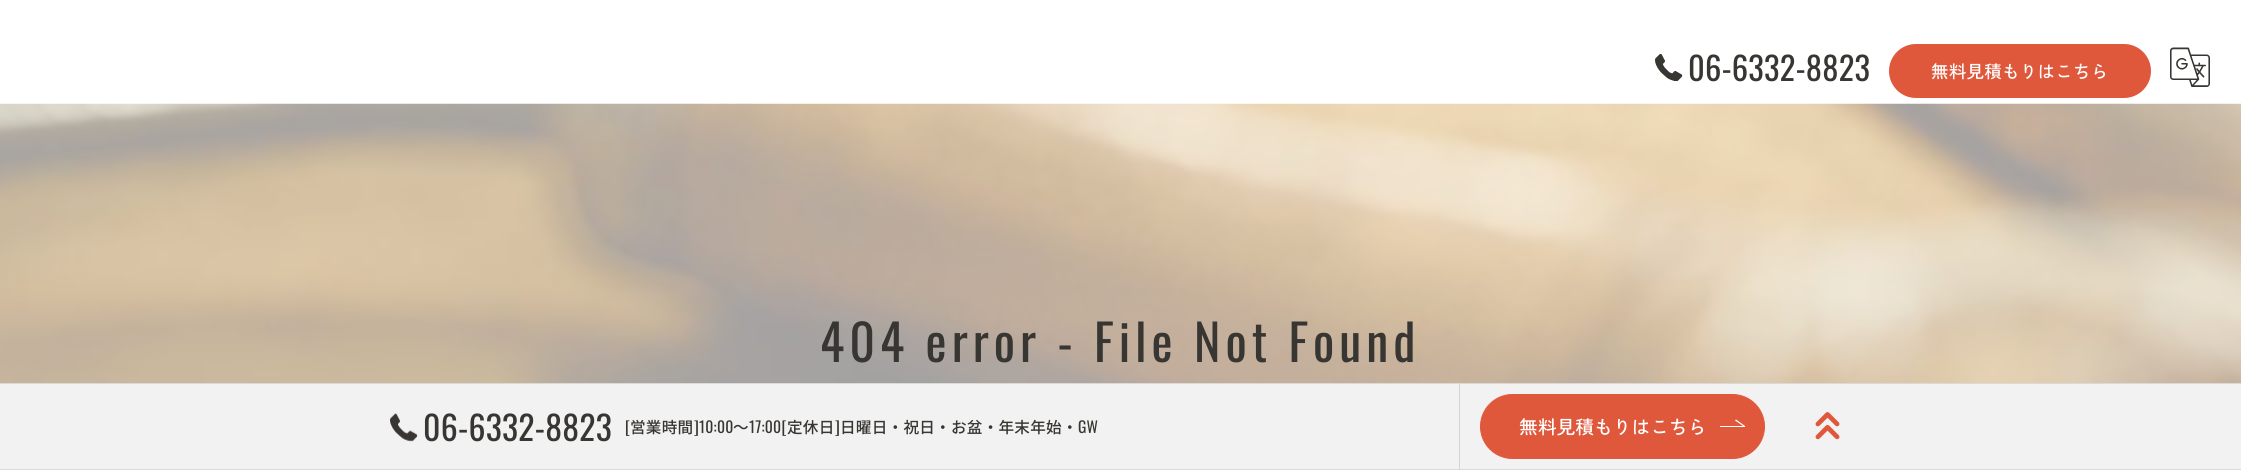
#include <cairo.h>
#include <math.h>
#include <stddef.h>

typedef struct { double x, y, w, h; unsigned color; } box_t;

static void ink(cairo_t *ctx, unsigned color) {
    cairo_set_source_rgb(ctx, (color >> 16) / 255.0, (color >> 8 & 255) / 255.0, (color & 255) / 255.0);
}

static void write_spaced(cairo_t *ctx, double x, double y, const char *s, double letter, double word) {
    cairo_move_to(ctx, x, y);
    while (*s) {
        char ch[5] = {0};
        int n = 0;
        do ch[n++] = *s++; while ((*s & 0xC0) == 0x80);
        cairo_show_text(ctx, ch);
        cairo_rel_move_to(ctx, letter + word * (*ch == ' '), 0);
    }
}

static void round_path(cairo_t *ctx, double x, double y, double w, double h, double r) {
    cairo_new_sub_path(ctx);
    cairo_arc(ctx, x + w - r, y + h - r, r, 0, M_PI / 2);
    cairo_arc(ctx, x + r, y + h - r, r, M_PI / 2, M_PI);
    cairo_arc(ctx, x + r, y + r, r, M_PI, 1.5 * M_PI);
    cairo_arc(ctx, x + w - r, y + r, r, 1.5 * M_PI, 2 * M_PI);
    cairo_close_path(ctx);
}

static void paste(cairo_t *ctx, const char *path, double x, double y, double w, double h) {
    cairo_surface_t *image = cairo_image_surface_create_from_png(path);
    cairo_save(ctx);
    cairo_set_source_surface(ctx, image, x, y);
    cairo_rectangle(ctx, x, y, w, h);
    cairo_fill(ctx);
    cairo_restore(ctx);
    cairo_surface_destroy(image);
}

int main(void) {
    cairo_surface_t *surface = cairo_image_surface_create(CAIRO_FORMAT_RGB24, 2241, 470);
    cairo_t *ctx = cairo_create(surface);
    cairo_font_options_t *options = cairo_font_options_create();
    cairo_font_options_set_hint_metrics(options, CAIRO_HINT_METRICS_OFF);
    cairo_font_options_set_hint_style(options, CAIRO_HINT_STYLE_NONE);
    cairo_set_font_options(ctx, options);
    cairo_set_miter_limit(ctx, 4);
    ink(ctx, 0xFFFFFF);
    cairo_paint(ctx);
    paste(ctx, "media/1.png", 1655, 54, 28, 27);
    cairo_select_font_face(ctx, "Oswald", CAIRO_FONT_SLANT_NORMAL, CAIRO_FONT_WEIGHT_NORMAL);
    cairo_set_font_size(ctx, 32.5);
    ink(ctx, 0x383632);
    write_spaced(ctx, 1688, 81, "06-6332-8823", 0.25, 0);
    ink(ctx, 0xDF583B);
    round_path(ctx, 1889, 44, 262, 54, 27);
    cairo_fill(ctx);
    cairo_select_font_face(ctx, "Zen Kaku Gothic New Medium", CAIRO_FONT_SLANT_NORMAL, CAIRO_FONT_WEIGHT_NORMAL);
    cairo_set_font_size(ctx, 17.5);
    ink(ctx, 0xFFFFFF);
    write_spaced(ctx, 1931, 78, "無料見積もりはこちら", 0.25, 0);
    paste(ctx, "media/2.png", 2170, 47, 40, 40);
    paste(ctx, "media/3.png", 0, 103, 2241, 280);
    cairo_select_font_face(ctx, "Oswald", CAIRO_FONT_SLANT_NORMAL, CAIRO_FONT_WEIGHT_NORMAL);
    cairo_set_font_size(ctx, 50);
    ink(ctx, 0x383632);
    write_spaced(ctx, 820, 362, "404 error - File Not Found", 5, 0);
    {
        static const box_t items[] = {
            {0, 384, 2241, 85, 0xF2F2F2},
            {0, 383, 2241, 1, 0xDADADA},
            {0, 469, 2241, 1, 0xDADADA},
            {1459, 384, 1, 85, 0xD3D3D3},
        };
        for (size_t i = 0; i < sizeof items / sizeof *items; i++) {
            ink(ctx, items[i].color);
            cairo_rectangle(ctx, items[i].x, items[i].y, items[i].w, items[i].h);
            cairo_fill(ctx);
        }
    }
    paste(ctx, "media/4.png", 390, 413, 28, 29);
    cairo_set_font_size(ctx, 33.75);
    ink(ctx, 0x383632);
    write_spaced(ctx, 423, 441, "06-6332-8823", 0.25, 0);
    cairo_set_font_size(ctx, 15.6);
    write_spaced(ctx, 625, 433, "[", 0.25, 0);
    cairo_select_font_face(ctx, "Noto Sans JP Medium", CAIRO_FONT_SLANT_NORMAL, CAIRO_FONT_WEIGHT_NORMAL);
    write_spaced(ctx, 630, 433, "営業時間", 0.25, 0);
    cairo_select_font_face(ctx, "Oswald", CAIRO_FONT_SLANT_NORMAL, CAIRO_FONT_WEIGHT_NORMAL);
    write_spaced(ctx, 694, 433, "]10:00", 0.25, 0);
    cairo_select_font_face(ctx, "Noto Sans JP Medium", CAIRO_FONT_SLANT_NORMAL, CAIRO_FONT_WEIGHT_NORMAL);
    write_spaced(ctx, 733, 433, "～", 0.25, 0);
    cairo_select_font_face(ctx, "Oswald", CAIRO_FONT_SLANT_NORMAL, CAIRO_FONT_WEIGHT_NORMAL);
    write_spaced(ctx, 749, 433, "17:00[", 0.25, 0);
    cairo_select_font_face(ctx, "Noto Sans JP Medium", CAIRO_FONT_SLANT_NORMAL, CAIRO_FONT_WEIGHT_NORMAL);
    write_spaced(ctx, 787, 433, "定休日", 0.25, 0);
    cairo_select_font_face(ctx, "Oswald", CAIRO_FONT_SLANT_NORMAL, CAIRO_FONT_WEIGHT_NORMAL);
    write_spaced(ctx, 835, 433, "]", 0.25, 0);
    cairo_select_font_face(ctx, "Noto Sans JP Medium", CAIRO_FONT_SLANT_NORMAL, CAIRO_FONT_WEIGHT_NORMAL);
    write_spaced(ctx, 840, 433, "日曜日・祝日・お盆・年末年始・", 0.25, 0);
    cairo_select_font_face(ctx, "Oswald", CAIRO_FONT_SLANT_NORMAL, CAIRO_FONT_WEIGHT_NORMAL);
    write_spaced(ctx, 1078, 433, "GW", 0.25, 0);
    ink(ctx, 0xDF583B);
    round_path(ctx, 1480.5, 394.5, 284, 64, 32);
    cairo_fill_preserve(ctx);
    cairo_set_line_width(ctx, 1);
    cairo_stroke(ctx);
    cairo_select_font_face(ctx, "Zen Kaku Gothic New Medium", CAIRO_FONT_SLANT_NORMAL, CAIRO_FONT_WEIGHT_NORMAL);
    cairo_set_font_size(ctx, 18.75);
    ink(ctx, 0xFFFFFF);
    cairo_move_to(ctx, 1519, 434);
    cairo_show_text(ctx, "無料見積もりはこちら");
    cairo_new_path(ctx);
    cairo_move_to(ctx, 1736, 419.5);
    cairo_line_to(ctx, 1745, 426);
    cairo_line_to(ctx, 1744.5, 427);
    cairo_line_to(ctx, 1735, 420.5);
    cairo_close_path(ctx);
    cairo_fill(ctx);
    cairo_rectangle(ctx, 1720, 426, 25, 1);
    cairo_fill(ctx);
    paste(ctx, "media/5.png", 1815, 412, 25, 28);
    cairo_surface_write_to_png(surface, "image.png");
    cairo_font_options_destroy(options);
    cairo_destroy(ctx);
    cairo_surface_destroy(surface);
    return 0;
}
